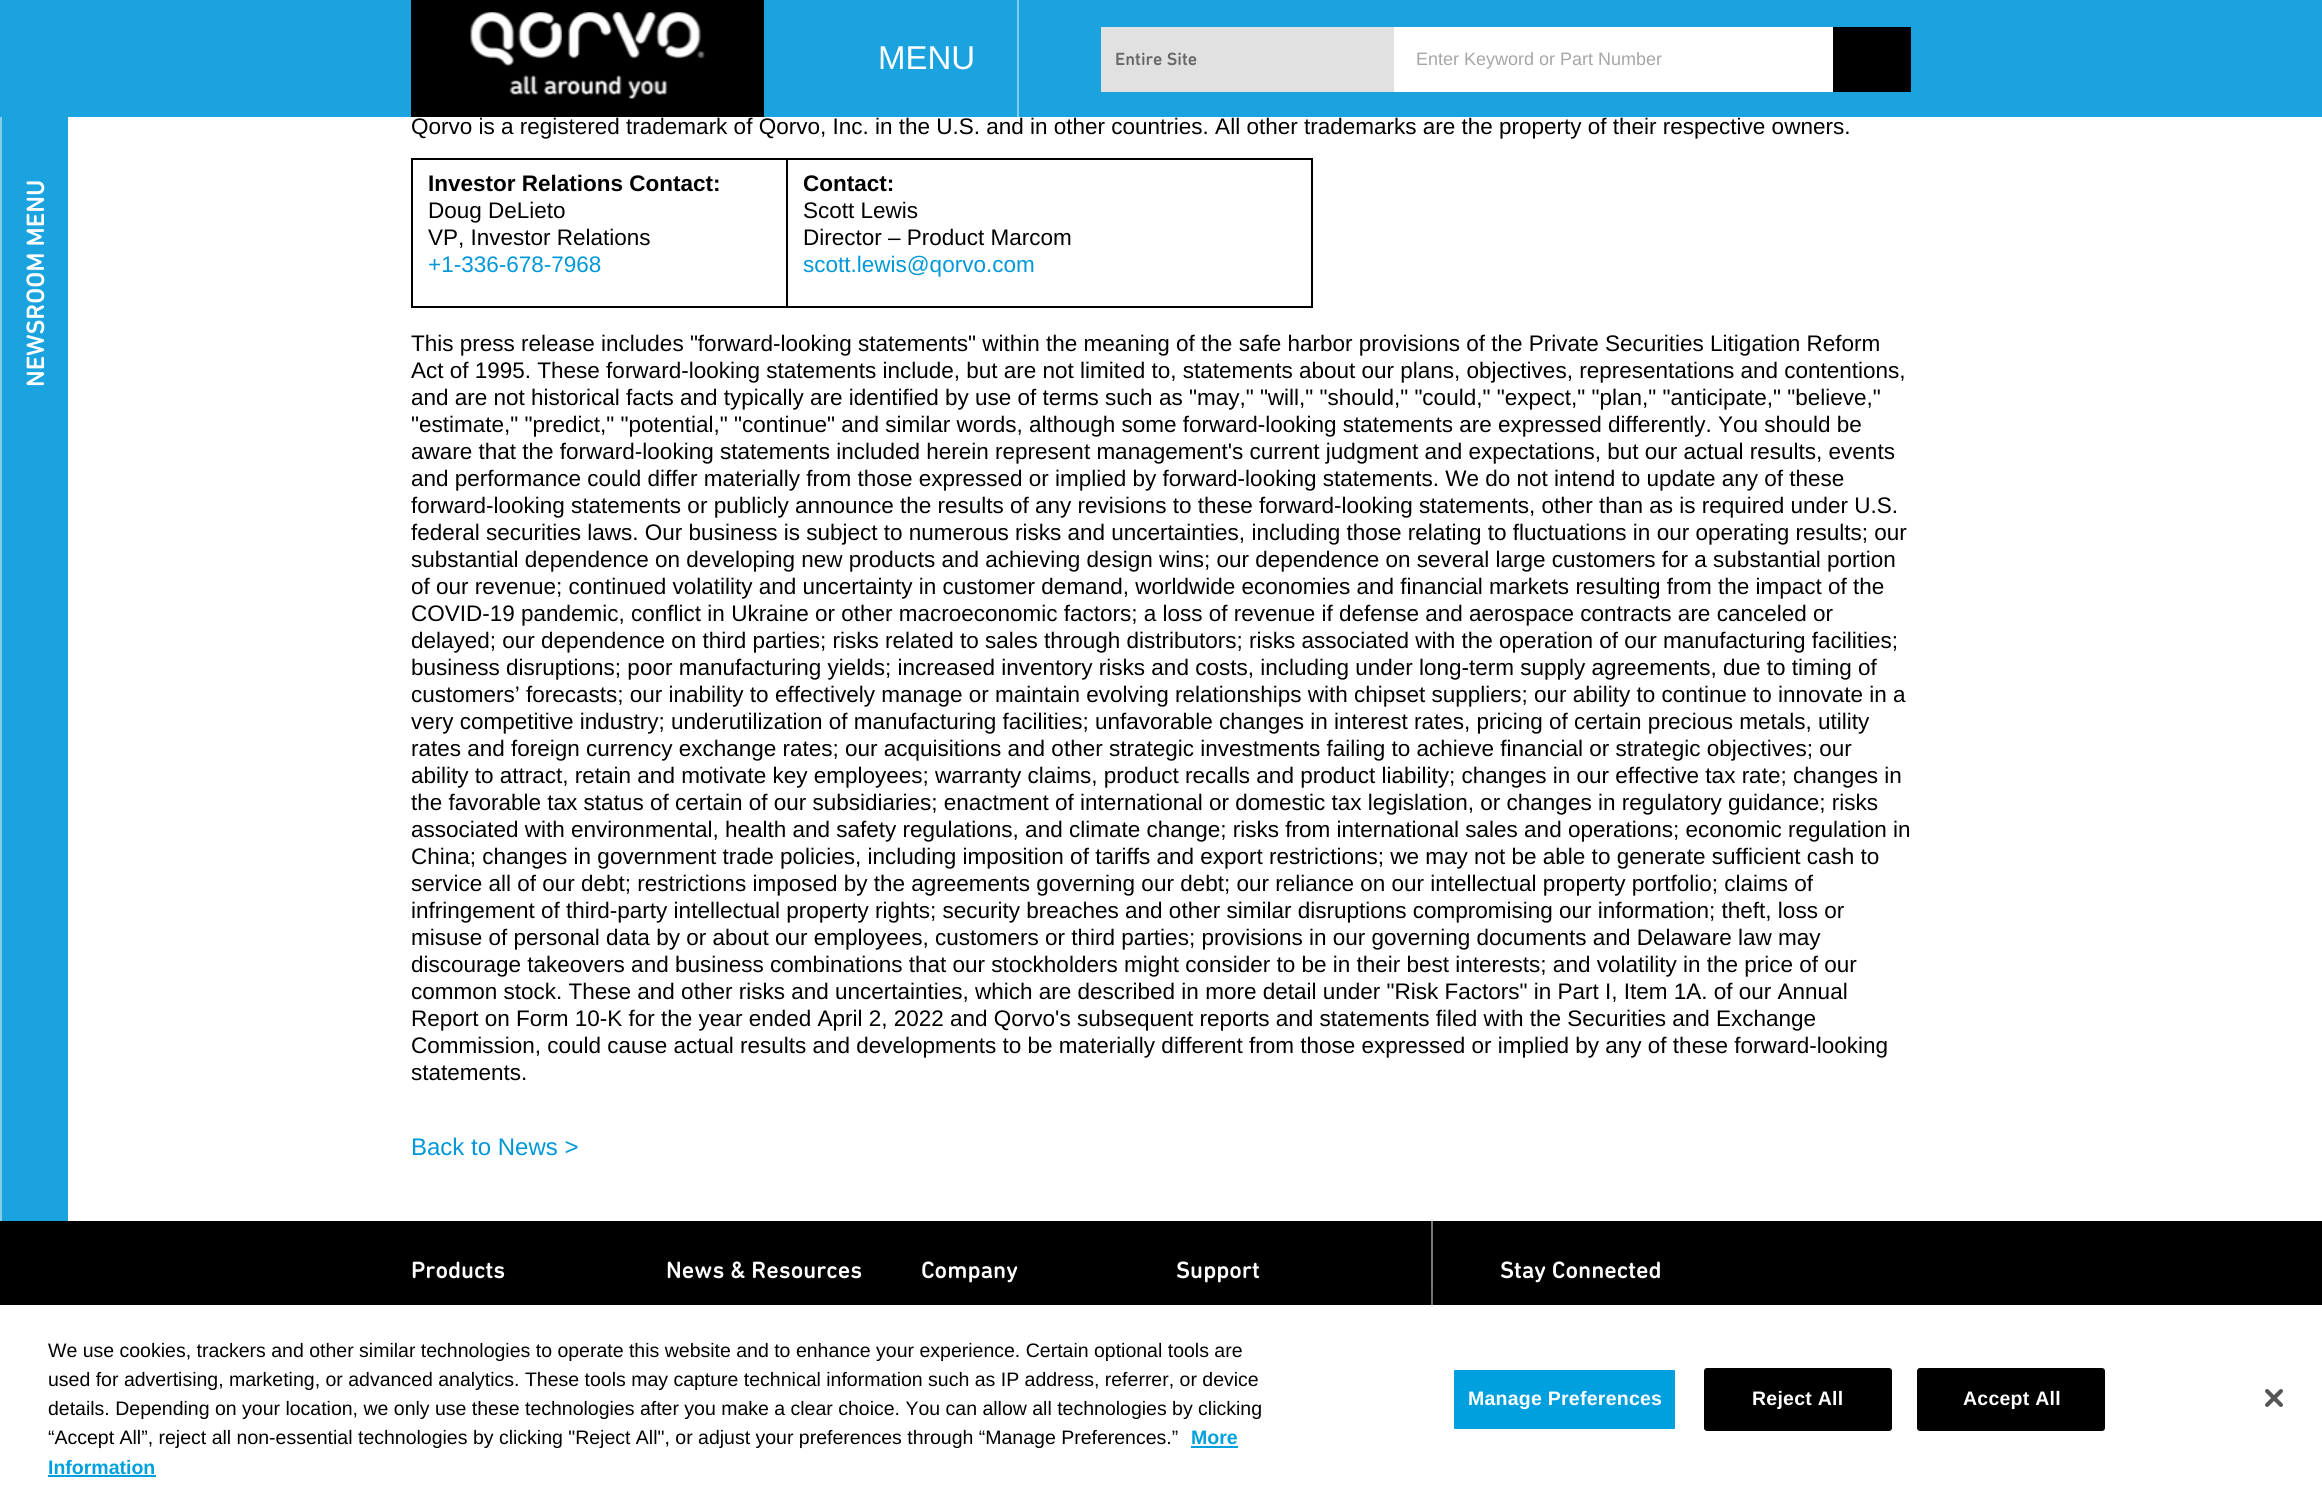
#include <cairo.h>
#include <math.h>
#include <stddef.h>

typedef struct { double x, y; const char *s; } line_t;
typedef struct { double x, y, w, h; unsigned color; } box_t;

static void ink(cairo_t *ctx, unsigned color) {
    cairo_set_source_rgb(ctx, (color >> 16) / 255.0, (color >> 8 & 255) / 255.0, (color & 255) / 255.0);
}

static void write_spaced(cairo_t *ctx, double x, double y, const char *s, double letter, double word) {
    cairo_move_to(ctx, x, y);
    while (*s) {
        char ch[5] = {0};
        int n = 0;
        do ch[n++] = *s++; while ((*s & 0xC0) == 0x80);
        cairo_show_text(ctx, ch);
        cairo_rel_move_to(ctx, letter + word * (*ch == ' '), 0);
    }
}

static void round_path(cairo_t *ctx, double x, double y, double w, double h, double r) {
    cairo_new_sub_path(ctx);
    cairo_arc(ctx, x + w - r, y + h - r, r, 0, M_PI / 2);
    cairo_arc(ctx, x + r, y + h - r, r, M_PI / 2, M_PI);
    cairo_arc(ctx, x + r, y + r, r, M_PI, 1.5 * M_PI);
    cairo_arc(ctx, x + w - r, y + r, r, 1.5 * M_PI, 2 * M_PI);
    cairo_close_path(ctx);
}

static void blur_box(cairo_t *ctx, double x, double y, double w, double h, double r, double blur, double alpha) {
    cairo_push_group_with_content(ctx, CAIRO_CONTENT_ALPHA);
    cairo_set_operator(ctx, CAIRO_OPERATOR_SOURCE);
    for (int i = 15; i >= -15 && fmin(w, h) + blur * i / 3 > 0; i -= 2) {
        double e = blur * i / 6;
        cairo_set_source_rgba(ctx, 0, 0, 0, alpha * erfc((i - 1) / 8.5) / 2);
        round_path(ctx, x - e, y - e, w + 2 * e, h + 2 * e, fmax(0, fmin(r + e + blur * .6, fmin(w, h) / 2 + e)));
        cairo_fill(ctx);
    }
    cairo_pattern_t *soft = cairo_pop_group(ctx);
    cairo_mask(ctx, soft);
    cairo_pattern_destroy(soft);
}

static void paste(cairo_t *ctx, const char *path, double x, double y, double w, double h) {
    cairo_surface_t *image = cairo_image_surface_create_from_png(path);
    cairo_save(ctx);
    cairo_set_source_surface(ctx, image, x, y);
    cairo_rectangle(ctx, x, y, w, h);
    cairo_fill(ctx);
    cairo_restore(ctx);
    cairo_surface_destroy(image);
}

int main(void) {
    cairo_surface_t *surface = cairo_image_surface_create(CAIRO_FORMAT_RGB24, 2322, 1497);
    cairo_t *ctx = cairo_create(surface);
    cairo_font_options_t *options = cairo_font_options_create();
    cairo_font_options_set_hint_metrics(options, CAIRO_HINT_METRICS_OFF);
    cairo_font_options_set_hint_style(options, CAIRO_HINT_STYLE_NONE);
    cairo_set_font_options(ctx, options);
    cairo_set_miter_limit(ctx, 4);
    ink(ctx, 0xFFFFFF);
    cairo_paint(ctx);
    ink(ctx, 0x1AA3DE);
    cairo_rectangle(ctx, 0, 0, 2322, 117);
    cairo_fill(ctx);
    ink(ctx, 0x000000);
    cairo_rectangle(ctx, 411, 0, 353, 117);
    cairo_fill(ctx);
    paste(ctx, "media/1.png", 470, 12, 235, 87);
    ink(ctx, 0x82CDED);
    cairo_rectangle(ctx, 1017, 0, 2, 117);
    cairo_fill(ctx);
    cairo_select_font_face(ctx, "Liberation Sans", CAIRO_FONT_SLANT_NORMAL, CAIRO_FONT_WEIGHT_NORMAL);
    cairo_set_font_size(ctx, 33);
    ink(ctx, 0xFFFFFF);
    cairo_move_to(ctx, 878, 69);
    cairo_show_text(ctx, "MENU");
    ink(ctx, 0xE1E1E1);
    cairo_rectangle(ctx, 1101, 27, 293, 65);
    cairo_fill(ctx);
    cairo_select_font_face(ctx, "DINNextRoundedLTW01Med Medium", CAIRO_FONT_SLANT_NORMAL, CAIRO_FONT_WEIGHT_NORMAL);
    cairo_set_font_size(ctx, 18);
    ink(ctx, 0x676767);
    cairo_move_to(ctx, 1115, 65);
    cairo_show_text(ctx, "Entire Site");
    ink(ctx, 0xFFFFFF);
    cairo_rectangle(ctx, 1394, 27, 439, 65);
    cairo_fill(ctx);
    cairo_select_font_face(ctx, "Liberation Sans", CAIRO_FONT_SLANT_NORMAL, CAIRO_FONT_WEIGHT_NORMAL);
    ink(ctx, 0xA6A6A6);
    cairo_move_to(ctx, 1416, 65);
    cairo_show_text(ctx, "Enter Keyword or Part Number");
    {
        static const box_t items[] = {
            {1833, 27, 78, 65, 0x000000},
            {2, 117, 66, 1104, 0x1AA3DE},
            {0, 117, 2, 1104, 0x87CDE8},
        };
        for (size_t i = 0; i < sizeof items / sizeof *items; i++) {
            ink(ctx, items[i].color);
            cairo_rectangle(ctx, items[i].x, items[i].y, items[i].w, items[i].h);
            cairo_fill(ctx);
        }
    }
    cairo_select_font_face(ctx, "DINNextRoundedLTW01Med Medium", CAIRO_FONT_SLANT_NORMAL, CAIRO_FONT_WEIGHT_NORMAL);
    cairo_set_font_size(ctx, 25.5);
    ink(ctx, 0xFFFFFF);
    cairo_save(ctx);
    cairo_translate(ctx, 44, 387);
    cairo_rotate(ctx, -90 * M_PI / 180);
    cairo_move_to(ctx, 0, 0);
    cairo_show_text(ctx, "NEWSROOM MENU");
    cairo_restore(ctx);
    cairo_select_font_face(ctx, "Liberation Sans", CAIRO_FONT_SLANT_NORMAL, CAIRO_FONT_WEIGHT_NORMAL);
    cairo_set_font_size(ctx, 22.5);
    ink(ctx, 0x000000);
    cairo_move_to(ctx, 411, 134);
    cairo_show_text(ctx, "Qorvo is a registered trademark of Qorvo, Inc. in the U.S. and in other countries. All other trademarks are the property of their respective owners.");
    {
        static const box_t items[] = {
            {411, 158, 902, 2, 0x000000},
            {1311, 158, 2, 150, 0x000000},
            {411, 306, 902, 2, 0x000000},
            {411, 158, 2, 150, 0x000000},
            {786, 158, 2, 150, 0x000000},
        };
        for (size_t i = 0; i < sizeof items / sizeof *items; i++) {
            ink(ctx, items[i].color);
            cairo_rectangle(ctx, items[i].x, items[i].y, items[i].w, items[i].h);
            cairo_fill(ctx);
        }
    }
    cairo_select_font_face(ctx, "Liberation Sans", CAIRO_FONT_SLANT_NORMAL, CAIRO_FONT_WEIGHT_BOLD);
    cairo_move_to(ctx, 428, 191);
    cairo_show_text(ctx, "Investor Relations Contact:");
    cairo_select_font_face(ctx, "Liberation Sans", CAIRO_FONT_SLANT_NORMAL, CAIRO_FONT_WEIGHT_NORMAL);
    cairo_move_to(ctx, 428, 218);
    cairo_show_text(ctx, "Doug DeLieto");
    cairo_move_to(ctx, 428, 245);
    cairo_show_text(ctx, "VP, Investor Relations");
    ink(ctx, 0x0198D9);
    cairo_move_to(ctx, 428, 272);
    cairo_show_text(ctx, "+1-336-678-7968");
    cairo_select_font_face(ctx, "Liberation Sans", CAIRO_FONT_SLANT_NORMAL, CAIRO_FONT_WEIGHT_BOLD);
    ink(ctx, 0x000000);
    cairo_move_to(ctx, 803, 191);
    cairo_show_text(ctx, "Contact:");
    cairo_select_font_face(ctx, "Liberation Sans", CAIRO_FONT_SLANT_NORMAL, CAIRO_FONT_WEIGHT_NORMAL);
    cairo_move_to(ctx, 803, 218);
    cairo_show_text(ctx, "Scott Lewis");
    cairo_move_to(ctx, 803, 245);
    cairo_show_text(ctx, "Director – Product Marcom");
    ink(ctx, 0x0198D9);
    cairo_move_to(ctx, 803, 272);
    cairo_show_text(ctx, "scott.lewis@qorvo.com");
    ink(ctx, 0x000000);
    {
        static const line_t items[] = {
            {411, 351, "This press release includes \"forward-looking statements\" within the meaning of the safe harbor provisions of the Private Securities Litigation Reform"},
            {411, 378, "Act of 1995. These forward-looking statements include, but are not limited to, statements about our plans, objectives, representations and contentions,"},
            {411, 405, "and are not historical facts and typically are identified by use of terms such as \"may,\" \"will,\" \"should,\" \"could,\" \"expect,\" \"plan,\" \"anticipate,\" \"believe,\""},
            {411, 432, "\"estimate,\" \"predict,\" \"potential,\" \"continue\" and similar words, although some forward-looking statements are expressed differently. You should be"},
            {411, 459, "aware that the forward-looking statements included herein represent management's current judgment and expectations, but our actual results, events"},
            {411, 486, "and performance could differ materially from those expressed or implied by forward-looking statements. We do not intend to update any of these"},
            {411, 513, "forward-looking statements or publicly announce the results of any revisions to these forward-looking statements, other than as is required under U.S."},
            {411, 540, "federal securities laws. Our business is subject to numerous risks and uncertainties, including those relating to fluctuations in our operating results; our"},
            {411, 567, "substantial dependence on developing new products and achieving design wins; our dependence on several large customers for a substantial portion"},
            {411, 594, "of our revenue; continued volatility and uncertainty in customer demand, worldwide economies and financial markets resulting from the impact of the"},
            {411, 621, "COVID-19 pandemic, conflict in Ukraine or other macroeconomic factors; a loss of revenue if defense and aerospace contracts are canceled or"},
            {411, 648, "delayed; our dependence on third parties; risks related to sales through distributors; risks associated with the operation of our manufacturing facilities;"},
            {411, 675, "business disruptions; poor manufacturing yields; increased inventory risks and costs, including under long-term supply agreements, due to timing of"},
            {411, 702, "customers’ forecasts; our inability to effectively manage or maintain evolving relationships with chipset suppliers; our ability to continue to innovate in a"},
            {411, 729, "very competitive industry; underutilization of manufacturing facilities; unfavorable changes in interest rates, pricing of certain precious metals, utility"},
            {411, 756, "rates and foreign currency exchange rates; our acquisitions and other strategic investments failing to achieve financial or strategic objectives; our"},
            {411, 783, "ability to attract, retain and motivate key employees; warranty claims, product recalls and product liability; changes in our effective tax rate; changes in"},
            {411, 810, "the favorable tax status of certain of our subsidiaries; enactment of international or domestic tax legislation, or changes in regulatory guidance; risks"},
            {411, 837, "associated with environmental, health and safety regulations, and climate change; risks from international sales and operations; economic regulation in"},
            {411, 864, "China; changes in government trade policies, including imposition of tariffs and export restrictions; we may not be able to generate sufficient cash to"},
            {411, 891, "service all of our debt; restrictions imposed by the agreements governing our debt; our reliance on our intellectual property portfolio; claims of"},
            {411, 918, "infringement of third-party intellectual property rights; security breaches and other similar disruptions compromising our information; theft, loss or"},
            {411, 945, "misuse of personal data by or about our employees, customers or third parties; provisions in our governing documents and Delaware law may"},
            {411, 972, "discourage takeovers and business combinations that our stockholders might consider to be in their best interests; and volatility in the price of our"},
            {411, 999, "common stock. These and other risks and uncertainties, which are described in more detail under \"Risk Factors\" in Part I, Item 1A. of our Annual"},
            {411, 1026, "Report on Form 10-K for the year ended April 2, 2022 and Qorvo's subsequent reports and statements filed with the Securities and Exchange"},
            {411, 1053, "Commission, could cause actual results and developments to be materially different from those expressed or implied by any of these forward-looking"},
            {411, 1080, "statements."},
        };
        for (size_t i = 0; i < sizeof items / sizeof *items; i++) {
            cairo_move_to(ctx, items[i].x, items[i].y);
            cairo_show_text(ctx, items[i].s);
        }
    }
    cairo_set_font_size(ctx, 24);
    ink(ctx, 0x0198D9);
    cairo_move_to(ctx, 411, 1155);
    cairo_show_text(ctx, "Back to News >");
    ink(ctx, 0x000000);
    cairo_rectangle(ctx, 0, 1221, 2322, 84);
    cairo_fill(ctx);
    cairo_select_font_face(ctx, "DINNextRoundedLTW01Med Medium", CAIRO_FONT_SLANT_NORMAL, CAIRO_FONT_WEIGHT_NORMAL);
    ink(ctx, 0xFFFFFF);
    {
        static const line_t items[] = {
            {411, 1278, "Products"},
            {666, 1278, "News & Resources"},
            {921, 1278, "Company"},
            {1176, 1278, "Support"},
        };
        for (size_t i = 0; i < sizeof items / sizeof *items; i++) {
            cairo_move_to(ctx, items[i].x, items[i].y);
            cairo_show_text(ctx, items[i].s);
        }
    }
    ink(ctx, 0x797979);
    cairo_rectangle(ctx, 1431, 1221, 2, 84);
    cairo_fill(ctx);
    ink(ctx, 0xFFFFFF);
    cairo_move_to(ctx, 1500, 1278);
    cairo_show_text(ctx, "Stay Connected");
    ink(ctx, 0x000000);
    blur_box(ctx, 0, 1305, 2322, 192, 0, 13.5, 0.2);
    ink(ctx, 0xFFFFFF);
    cairo_rectangle(ctx, 0, 1305, 2322, 192);
    cairo_fill(ctx);
    cairo_select_font_face(ctx, "Liberation Sans", CAIRO_FONT_SLANT_NORMAL, CAIRO_FONT_WEIGHT_NORMAL);
    cairo_set_font_size(ctx, 19.5);
    ink(ctx, 0x000000);
    {
        static const line_t items[] = {
            {48, 1357, "We use cookies, trackers and other similar technologies to operate this website and to enhance your experience. Certain optional tools are"},
            {48, 1386, "used for advertising, marketing, or advanced analytics. These tools may capture technical information such as IP address, referrer, or device"},
            {48, 1415, "details. Depending on your location, we only use these technologies after you make a clear choice. You can allow all technologies by clicking"},
            {48, 1444, "“Accept All”, reject all non-essential technologies by clicking \"Reject All\", or adjust your preferences through “Manage Preferences.”"},
        };
        for (size_t i = 0; i < sizeof items / sizeof *items; i++) {
            cairo_move_to(ctx, items[i].x, items[i].y);
            cairo_show_text(ctx, items[i].s);
        }
    }
    cairo_select_font_face(ctx, "Liberation Sans", CAIRO_FONT_SLANT_NORMAL, CAIRO_FONT_WEIGHT_BOLD);
    ink(ctx, 0x00A0DF);
    cairo_move_to(ctx, 1191, 1444);
    cairo_show_text(ctx, "More");
    cairo_rectangle(ctx, 1191, 1446, 47, 2);
    cairo_fill(ctx);
    cairo_move_to(ctx, 48, 1474);
    cairo_show_text(ctx, "Information");
    cairo_rectangle(ctx, 48, 1475, 108, 2);
    cairo_fill(ctx);
    round_path(ctx, 1453, 1369, 223, 61, 2);
    cairo_fill_preserve(ctx);
    ink(ctx, 0xFFFFFF);
    cairo_stroke(ctx);
    write_spaced(ctx, 1468, 1405, "Manage Preferences", 0.25, 0);
    ink(ctx, 0x000000);
    round_path(ctx, 1705, 1369, 186, 61, 2);
    cairo_fill_preserve(ctx);
    cairo_stroke(ctx);
    ink(ctx, 0xFFFFFF);
    write_spaced(ctx, 1752, 1405, "Reject All", 0.25, 0);
    ink(ctx, 0x000000);
    round_path(ctx, 1918, 1369, 186, 61, 2);
    cairo_fill_preserve(ctx);
    cairo_stroke(ctx);
    ink(ctx, 0xFFFFFF);
    write_spaced(ctx, 1963, 1405, "Accept All", 0.25, 0);
    paste(ctx, "media/2.png", 2265, 1389, 18, 18);
    cairo_surface_write_to_png(surface, "image.png");
    cairo_font_options_destroy(options);
    cairo_destroy(ctx);
    cairo_surface_destroy(surface);
    return 0;
}
